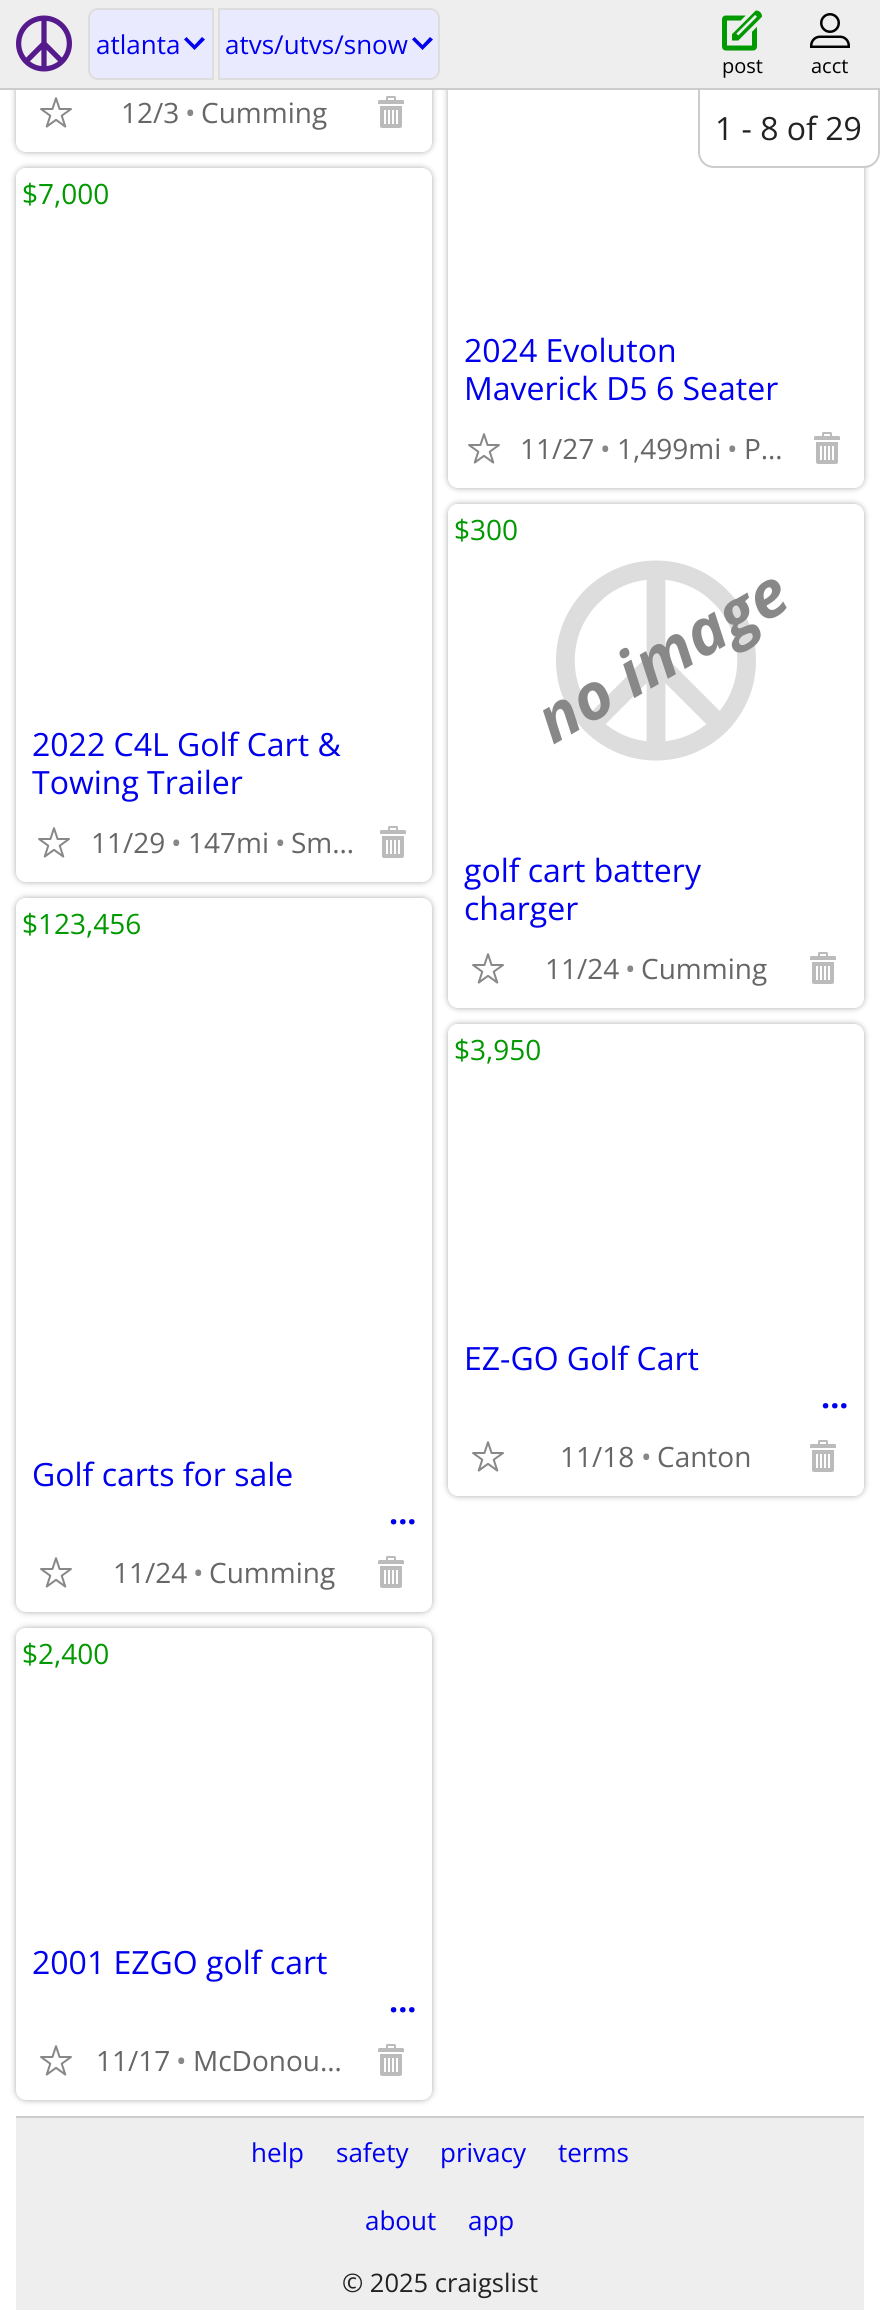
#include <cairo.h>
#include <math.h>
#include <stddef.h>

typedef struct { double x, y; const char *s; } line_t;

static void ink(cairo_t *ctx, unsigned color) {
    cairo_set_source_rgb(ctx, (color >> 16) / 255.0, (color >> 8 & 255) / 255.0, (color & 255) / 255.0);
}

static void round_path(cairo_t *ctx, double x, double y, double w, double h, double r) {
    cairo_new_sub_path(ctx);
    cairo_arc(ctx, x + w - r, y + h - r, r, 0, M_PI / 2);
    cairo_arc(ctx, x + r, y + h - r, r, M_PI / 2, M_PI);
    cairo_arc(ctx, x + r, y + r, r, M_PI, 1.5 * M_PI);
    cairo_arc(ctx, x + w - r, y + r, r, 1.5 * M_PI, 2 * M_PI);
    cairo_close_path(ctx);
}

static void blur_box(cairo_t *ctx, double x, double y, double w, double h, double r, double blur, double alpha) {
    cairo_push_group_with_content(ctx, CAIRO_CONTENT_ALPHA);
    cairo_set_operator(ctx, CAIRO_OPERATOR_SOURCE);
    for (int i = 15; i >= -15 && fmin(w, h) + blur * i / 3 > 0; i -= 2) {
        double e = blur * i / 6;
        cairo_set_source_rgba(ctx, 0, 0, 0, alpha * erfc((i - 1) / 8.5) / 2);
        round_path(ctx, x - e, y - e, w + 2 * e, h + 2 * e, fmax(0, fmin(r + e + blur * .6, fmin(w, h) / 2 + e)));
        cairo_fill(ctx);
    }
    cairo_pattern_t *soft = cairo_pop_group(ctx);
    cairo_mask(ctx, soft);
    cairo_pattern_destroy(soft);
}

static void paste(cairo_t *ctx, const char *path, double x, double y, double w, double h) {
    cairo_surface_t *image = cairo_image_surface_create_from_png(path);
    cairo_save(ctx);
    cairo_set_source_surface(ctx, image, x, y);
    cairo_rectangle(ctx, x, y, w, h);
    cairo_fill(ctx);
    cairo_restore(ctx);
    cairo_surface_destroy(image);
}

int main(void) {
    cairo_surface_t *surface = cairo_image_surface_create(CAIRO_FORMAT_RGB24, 880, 2310);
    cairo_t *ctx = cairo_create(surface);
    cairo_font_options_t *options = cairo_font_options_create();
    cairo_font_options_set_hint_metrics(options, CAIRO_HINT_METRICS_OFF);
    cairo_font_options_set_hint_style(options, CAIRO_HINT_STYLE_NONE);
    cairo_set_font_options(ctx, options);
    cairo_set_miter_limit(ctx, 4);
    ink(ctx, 0xFFFFFF);
    cairo_paint(ctx);
    ink(ctx, 0xAAAAAA);
    blur_box(ctx, 16, -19, 416, 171, 10, 3, 1);
    ink(ctx, 0xFFFFFF);
    round_path(ctx, 16, -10, 416, 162, 10);
    cairo_fill(ctx);
    ink(ctx, 0xAAAAAA);
    blur_box(ctx, 448, -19, 416, 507, 10, 3, 1);
    ink(ctx, 0xFFFFFF);
    round_path(ctx, 448, -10, 416, 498, 10);
    cairo_fill(ctx);
    ink(ctx, 0xEEEEEE);
    cairo_rectangle(ctx, 0, 0, 880, 88);
    cairo_fill(ctx);
    ink(ctx, 0xCCCCCC);
    cairo_rectangle(ctx, 0, 88, 880, 2);
    cairo_fill(ctx);
    paste(ctx, "media/1.png", 16, 15, 56, 57);
    ink(ctx, 0xEAEAFF);
    cairo_new_path(ctx);
    cairo_move_to(ctx, 98, 9);
    cairo_line_to(ctx, 213, 9);
    cairo_line_to(ctx, 213, 79);
    cairo_line_to(ctx, 98, 79);
    cairo_curve_to(ctx, 93, 79, 89, 75, 89, 70);
    cairo_line_to(ctx, 89, 18);
    cairo_curve_to(ctx, 89, 13, 93, 9, 98, 9);
    cairo_close_path(ctx);
    cairo_fill_preserve(ctx);
    ink(ctx, 0xDDDDDD);
    cairo_stroke(ctx);
    cairo_select_font_face(ctx, "Open Sans", CAIRO_FONT_SLANT_NORMAL, CAIRO_FONT_WEIGHT_NORMAL);
    cairo_set_font_size(ctx, 26);
    ink(ctx, 0x0000EE);
    cairo_move_to(ctx, 96, 54);
    cairo_show_text(ctx, "atlanta");
    cairo_new_path(ctx);
    cairo_move_to(ctx, 205, 39.5);
    cairo_line_to(ctx, 202, 37);
    cairo_line_to(ctx, 194.5, 45);
    cairo_line_to(ctx, 186.5, 37);
    cairo_line_to(ctx, 184, 39.5);
    cairo_line_to(ctx, 194.5, 50);
    cairo_close_path(ctx);
    cairo_fill(ctx);
    ink(ctx, 0xEAEAFF);
    cairo_new_path(ctx);
    cairo_move_to(ctx, 219, 9);
    cairo_line_to(ctx, 430, 9);
    cairo_curve_to(ctx, 435, 9, 439, 13, 439, 18);
    cairo_line_to(ctx, 439, 70);
    cairo_curve_to(ctx, 439, 75, 435, 79, 430, 79);
    cairo_line_to(ctx, 219, 79);
    cairo_close_path(ctx);
    cairo_fill_preserve(ctx);
    ink(ctx, 0xDDDDDD);
    cairo_stroke(ctx);
    ink(ctx, 0x0000EE);
    cairo_move_to(ctx, 225, 54);
    cairo_show_text(ctx, "atvs/utvs/snow");
    cairo_new_path(ctx);
    cairo_move_to(ctx, 433, 39.5);
    cairo_line_to(ctx, 430, 37);
    cairo_line_to(ctx, 422.5, 45);
    cairo_line_to(ctx, 414.5, 37);
    cairo_line_to(ctx, 412, 39.5);
    cairo_line_to(ctx, 422.5, 50);
    cairo_close_path(ctx);
    cairo_fill(ctx);
    paste(ctx, "media/2.png", 722, 10, 40, 41);
    cairo_set_font_size(ctx, 20);
    ink(ctx, 0x000000);
    cairo_move_to(ctx, 722, 73);
    cairo_show_text(ctx, "post");
    paste(ctx, "media/3.png", 810, 13, 40, 35);
    cairo_move_to(ctx, 811, 73);
    cairo_show_text(ctx, "acct");
    paste(ctx, "media/4.png", 40, 97, 32, 31);
    cairo_set_font_size(ctx, 28);
    ink(ctx, 0x666666);
    cairo_move_to(ctx, 121, 123);
    cairo_show_text(ctx, "12/3");
    ink(ctx, 0x888888);
    cairo_move_to(ctx, 185, 123);
    cairo_show_text(ctx, "•");
    ink(ctx, 0x666666);
    cairo_move_to(ctx, 201, 123);
    cairo_show_text(ctx, "Cumming");
    paste(ctx, "media/5.png", 378, 96, 26, 32);
    ink(ctx, 0xAAAAAA);
    blur_box(ctx, 16, 168, 416, 714, 10, 3, 1);
    ink(ctx, 0xFFFFFF);
    round_path(ctx, 16, 168, 416, 714, 10);
    cairo_fill(ctx);
    cairo_new_path(ctx);
    cairo_move_to(ctx, 26, 168);
    cairo_line_to(ctx, 116, 168);
    cairo_line_to(ctx, 116, 208);
    cairo_curve_to(ctx, 116, 213.5, 111.5, 218, 106, 218);
    cairo_line_to(ctx, 16, 218);
    cairo_line_to(ctx, 16, 178);
    cairo_curve_to(ctx, 16, 172.5, 20.5, 168, 26, 168);
    cairo_close_path(ctx);
    cairo_fill(ctx);
    ink(ctx, 0x009900);
    cairo_move_to(ctx, 22, 204);
    cairo_show_text(ctx, "$7,000");
    cairo_set_font_size(ctx, 32);
    ink(ctx, 0x0000EE);
    cairo_move_to(ctx, 32, 756);
    cairo_show_text(ctx, "2022 C4L Golf Cart &");
    cairo_move_to(ctx, 32, 794);
    cairo_show_text(ctx, "Towing Trailer");
    paste(ctx, "media/4.png", 38, 827, 32, 31);
    cairo_set_font_size(ctx, 28);
    ink(ctx, 0x666666);
    cairo_move_to(ctx, 91, 853);
    cairo_show_text(ctx, "11/29");
    ink(ctx, 0x888888);
    cairo_move_to(ctx, 171, 853);
    cairo_show_text(ctx, "•");
    ink(ctx, 0x666666);
    cairo_move_to(ctx, 188, 853);
    cairo_show_text(ctx, "147mi");
    ink(ctx, 0x888888);
    cairo_move_to(ctx, 275, 853);
    cairo_show_text(ctx, "•");
    ink(ctx, 0x666666);
    cairo_move_to(ctx, 291, 853);
    cairo_show_text(ctx, "Sm…");
    paste(ctx, "media/5.png", 380, 826, 26, 32);
    ink(ctx, 0xAAAAAA);
    blur_box(ctx, 16, 898, 416, 714, 10, 3, 1);
    ink(ctx, 0xFFFFFF);
    round_path(ctx, 16, 898, 416, 714, 10);
    cairo_fill(ctx);
    cairo_new_path(ctx);
    cairo_move_to(ctx, 26, 898);
    cairo_line_to(ctx, 148, 898);
    cairo_line_to(ctx, 148, 938);
    cairo_curve_to(ctx, 148, 943.5, 143.5, 948, 138, 948);
    cairo_line_to(ctx, 16, 948);
    cairo_line_to(ctx, 16, 908);
    cairo_curve_to(ctx, 16, 902.5, 20.5, 898, 26, 898);
    cairo_close_path(ctx);
    cairo_fill(ctx);
    ink(ctx, 0x009900);
    cairo_move_to(ctx, 22, 934);
    cairo_show_text(ctx, "$123,456");
    cairo_set_font_size(ctx, 32);
    ink(ctx, 0x0000EE);
    cairo_move_to(ctx, 32, 1486);
    cairo_show_text(ctx, "Golf carts for sale");
    cairo_select_font_face(ctx, "Open Sans", CAIRO_FONT_SLANT_NORMAL, CAIRO_FONT_WEIGHT_BOLD);
    cairo_move_to(ctx, 389, 1524);
    cairo_show_text(ctx, "...");
    paste(ctx, "media/4.png", 40, 1557, 32, 31);
    cairo_select_font_face(ctx, "Open Sans", CAIRO_FONT_SLANT_NORMAL, CAIRO_FONT_WEIGHT_NORMAL);
    cairo_set_font_size(ctx, 28);
    ink(ctx, 0x666666);
    cairo_move_to(ctx, 113, 1583);
    cairo_show_text(ctx, "11/24");
    ink(ctx, 0x888888);
    cairo_move_to(ctx, 193, 1583);
    cairo_show_text(ctx, "•");
    ink(ctx, 0x666666);
    cairo_move_to(ctx, 209, 1583);
    cairo_show_text(ctx, "Cumming");
    paste(ctx, "media/5.png", 378, 1556, 26, 32);
    ink(ctx, 0xAAAAAA);
    blur_box(ctx, 16, 1628, 416, 472, 10, 3, 1);
    ink(ctx, 0xFFFFFF);
    round_path(ctx, 16, 1628, 416, 472, 10);
    cairo_fill(ctx);
    cairo_new_path(ctx);
    cairo_move_to(ctx, 26, 1628);
    cairo_line_to(ctx, 116, 1628);
    cairo_line_to(ctx, 116, 1668);
    cairo_curve_to(ctx, 116, 1673.5, 111.5, 1678, 106, 1678);
    cairo_line_to(ctx, 16, 1678);
    cairo_line_to(ctx, 16, 1638);
    cairo_curve_to(ctx, 16, 1632.5, 20.5, 1628, 26, 1628);
    cairo_close_path(ctx);
    cairo_fill(ctx);
    ink(ctx, 0x009900);
    cairo_move_to(ctx, 22, 1664);
    cairo_show_text(ctx, "$2,400");
    cairo_set_font_size(ctx, 32);
    ink(ctx, 0x0000EE);
    cairo_move_to(ctx, 32, 1974);
    cairo_show_text(ctx, "2001 EZGO golf cart");
    cairo_select_font_face(ctx, "Open Sans", CAIRO_FONT_SLANT_NORMAL, CAIRO_FONT_WEIGHT_BOLD);
    cairo_move_to(ctx, 389, 2012);
    cairo_show_text(ctx, "...");
    paste(ctx, "media/4.png", 40, 2045, 32, 31);
    cairo_select_font_face(ctx, "Open Sans", CAIRO_FONT_SLANT_NORMAL, CAIRO_FONT_WEIGHT_NORMAL);
    cairo_set_font_size(ctx, 28);
    ink(ctx, 0x666666);
    cairo_move_to(ctx, 96, 2071);
    cairo_show_text(ctx, "11/17");
    ink(ctx, 0x888888);
    cairo_move_to(ctx, 176, 2071);
    cairo_show_text(ctx, "•");
    ink(ctx, 0x666666);
    cairo_move_to(ctx, 193, 2071);
    cairo_show_text(ctx, "McDonou…");
    paste(ctx, "media/5.png", 378, 2044, 26, 32);
    cairo_set_font_size(ctx, 32);
    ink(ctx, 0x0000EE);
    cairo_move_to(ctx, 464, 362);
    cairo_show_text(ctx, "2024 Evoluton");
    cairo_move_to(ctx, 464, 400);
    cairo_show_text(ctx, "Maverick D5 6 Seater");
    paste(ctx, "media/4.png", 468, 433, 32, 31);
    cairo_set_font_size(ctx, 28);
    ink(ctx, 0x666666);
    cairo_move_to(ctx, 520, 459);
    cairo_show_text(ctx, "11/27");
    ink(ctx, 0x888888);
    cairo_move_to(ctx, 600, 459);
    cairo_show_text(ctx, "•");
    ink(ctx, 0x666666);
    cairo_move_to(ctx, 617, 459);
    cairo_show_text(ctx, "1,499mi");
    ink(ctx, 0x888888);
    cairo_move_to(ctx, 727, 459);
    cairo_show_text(ctx, "•");
    ink(ctx, 0x666666);
    cairo_move_to(ctx, 744, 459);
    cairo_show_text(ctx, "P…");
    paste(ctx, "media/5.png", 814, 432, 26, 32);
    ink(ctx, 0xAAAAAA);
    blur_box(ctx, 448, 504, 416, 504, 10, 3, 1);
    ink(ctx, 0xFFFFFF);
    round_path(ctx, 448, 504, 416, 504, 10);
    cairo_fill(ctx);
    cairo_new_path(ctx);
    cairo_move_to(ctx, 458, 504);
    cairo_line_to(ctx, 524, 504);
    cairo_line_to(ctx, 524, 544);
    cairo_curve_to(ctx, 524, 549.5, 519.5, 554, 514, 554);
    cairo_line_to(ctx, 448, 554);
    cairo_line_to(ctx, 448, 514);
    cairo_curve_to(ctx, 448, 508.5, 452.5, 504, 458, 504);
    cairo_close_path(ctx);
    cairo_fill(ctx);
    ink(ctx, 0x009900);
    cairo_move_to(ctx, 454, 540);
    cairo_show_text(ctx, "$300");
    paste(ctx, "media/6.png", 556, 560, 200, 201);
    cairo_select_font_face(ctx, "Open Sans", CAIRO_FONT_SLANT_ITALIC, CAIRO_FONT_WEIGHT_BOLD);
    cairo_set_font_size(ctx, 64);
    ink(ctx, 0x888888);
    cairo_save(ctx);
    cairo_translate(ctx, 553, 745);
    cairo_rotate(ctx, -30 * M_PI / 180);
    cairo_move_to(ctx, 0, 0);
    cairo_show_text(ctx, "no image");
    cairo_restore(ctx);
    cairo_select_font_face(ctx, "Open Sans", CAIRO_FONT_SLANT_NORMAL, CAIRO_FONT_WEIGHT_NORMAL);
    cairo_set_font_size(ctx, 32);
    ink(ctx, 0x0000EE);
    cairo_move_to(ctx, 464, 882);
    cairo_show_text(ctx, "golf cart battery");
    cairo_move_to(ctx, 464, 920);
    cairo_show_text(ctx, "charger");
    paste(ctx, "media/4.png", 472, 953, 32, 31);
    cairo_set_font_size(ctx, 28);
    ink(ctx, 0x666666);
    cairo_move_to(ctx, 545, 979);
    cairo_show_text(ctx, "11/24");
    ink(ctx, 0x888888);
    cairo_move_to(ctx, 625, 979);
    cairo_show_text(ctx, "•");
    ink(ctx, 0x666666);
    cairo_move_to(ctx, 641, 979);
    cairo_show_text(ctx, "Cumming");
    paste(ctx, "media/5.png", 810, 952, 26, 32);
    ink(ctx, 0xAAAAAA);
    blur_box(ctx, 448, 1024, 416, 472, 10, 3, 1);
    ink(ctx, 0xFFFFFF);
    round_path(ctx, 448, 1024, 416, 472, 10);
    cairo_fill(ctx);
    cairo_new_path(ctx);
    cairo_move_to(ctx, 458, 1024);
    cairo_line_to(ctx, 548, 1024);
    cairo_line_to(ctx, 548, 1064);
    cairo_curve_to(ctx, 548, 1069.5, 543.5, 1074, 538, 1074);
    cairo_line_to(ctx, 448, 1074);
    cairo_line_to(ctx, 448, 1034);
    cairo_curve_to(ctx, 448, 1028.5, 452.5, 1024, 458, 1024);
    cairo_close_path(ctx);
    cairo_fill(ctx);
    ink(ctx, 0x009900);
    cairo_move_to(ctx, 454, 1060);
    cairo_show_text(ctx, "$3,950");
    cairo_set_font_size(ctx, 32);
    ink(ctx, 0x0000EE);
    cairo_move_to(ctx, 464, 1370);
    cairo_show_text(ctx, "EZ-GO Golf Cart");
    cairo_select_font_face(ctx, "Open Sans", CAIRO_FONT_SLANT_NORMAL, CAIRO_FONT_WEIGHT_BOLD);
    cairo_move_to(ctx, 821, 1408);
    cairo_show_text(ctx, "...");
    paste(ctx, "media/4.png", 472, 1441, 32, 31);
    cairo_select_font_face(ctx, "Open Sans", CAIRO_FONT_SLANT_NORMAL, CAIRO_FONT_WEIGHT_NORMAL);
    cairo_set_font_size(ctx, 28);
    ink(ctx, 0x666666);
    cairo_move_to(ctx, 560, 1467);
    cairo_show_text(ctx, "11/18");
    ink(ctx, 0x888888);
    cairo_move_to(ctx, 641, 1467);
    cairo_show_text(ctx, "•");
    ink(ctx, 0x666666);
    cairo_move_to(ctx, 657, 1467);
    cairo_show_text(ctx, "Canton");
    paste(ctx, "media/5.png", 810, 1440, 26, 32);
    ink(ctx, 0xEEEEEE);
    cairo_rectangle(ctx, 16, 2118, 848, 192);
    cairo_fill(ctx);
    ink(ctx, 0xCCCCCC);
    cairo_rectangle(ctx, 16, 2116, 848, 2);
    cairo_fill(ctx);
    cairo_set_font_size(ctx, 26);
    ink(ctx, 0x0000EE);
    {
        static const line_t items[] = {
            {251, 2162, "help"},
            {336, 2162, "safety"},
            {440, 2162, "privacy"},
            {558, 2162, "terms"},
            {365, 2230, "about"},
            {468, 2230, "app"},
        };
        for (size_t i = 0; i < sizeof items / sizeof *items; i++) {
            cairo_move_to(ctx, items[i].x, items[i].y);
            cairo_show_text(ctx, items[i].s);
        }
    }
    cairo_set_font_size(ctx, 25.5);
    ink(ctx, 0x222222);
    cairo_move_to(ctx, 342, 2292);
    cairo_show_text(ctx, "© 2025 craigslist");
    ink(ctx, 0xFFFFFF);
    cairo_new_path(ctx);
    cairo_move_to(ctx, 700, 90);
    cairo_line_to(ctx, 878, 90);
    cairo_line_to(ctx, 878, 152);
    cairo_curve_to(ctx, 878, 159.5, 871.5, 166, 864, 166);
    cairo_line_to(ctx, 714, 166);
    cairo_curve_to(ctx, 706.5, 166, 700, 159.5, 700, 152);
    cairo_close_path(ctx);
    cairo_fill(ctx);
    ink(ctx, 0xCCCCCC);
    cairo_set_fill_rule(ctx, CAIRO_FILL_RULE_EVEN_ODD);
    cairo_new_path(ctx);
    cairo_move_to(ctx, 698, 90);
    cairo_line_to(ctx, 880, 90);
    cairo_line_to(ctx, 880, 152);
    cairo_curve_to(ctx, 880, 161, 873, 168, 864, 168);
    cairo_line_to(ctx, 714, 168);
    cairo_curve_to(ctx, 705, 168, 698, 161, 698, 152);
    cairo_close_path(ctx);
    cairo_move_to(ctx, 700, 90);
    cairo_line_to(ctx, 878, 90);
    cairo_line_to(ctx, 878, 152);
    cairo_curve_to(ctx, 878, 160, 872, 166, 864, 166);
    cairo_line_to(ctx, 714, 166);
    cairo_curve_to(ctx, 706, 166, 700, 160, 700, 152);
    cairo_close_path(ctx);
    cairo_fill(ctx);
    cairo_set_font_size(ctx, 32);
    ink(ctx, 0x222222);
    cairo_move_to(ctx, 715, 140);
    cairo_show_text(ctx, "1 - 8 of 29");
    cairo_surface_write_to_png(surface, "image.png");
    cairo_font_options_destroy(options);
    cairo_destroy(ctx);
    cairo_surface_destroy(surface);
    return 0;
}
